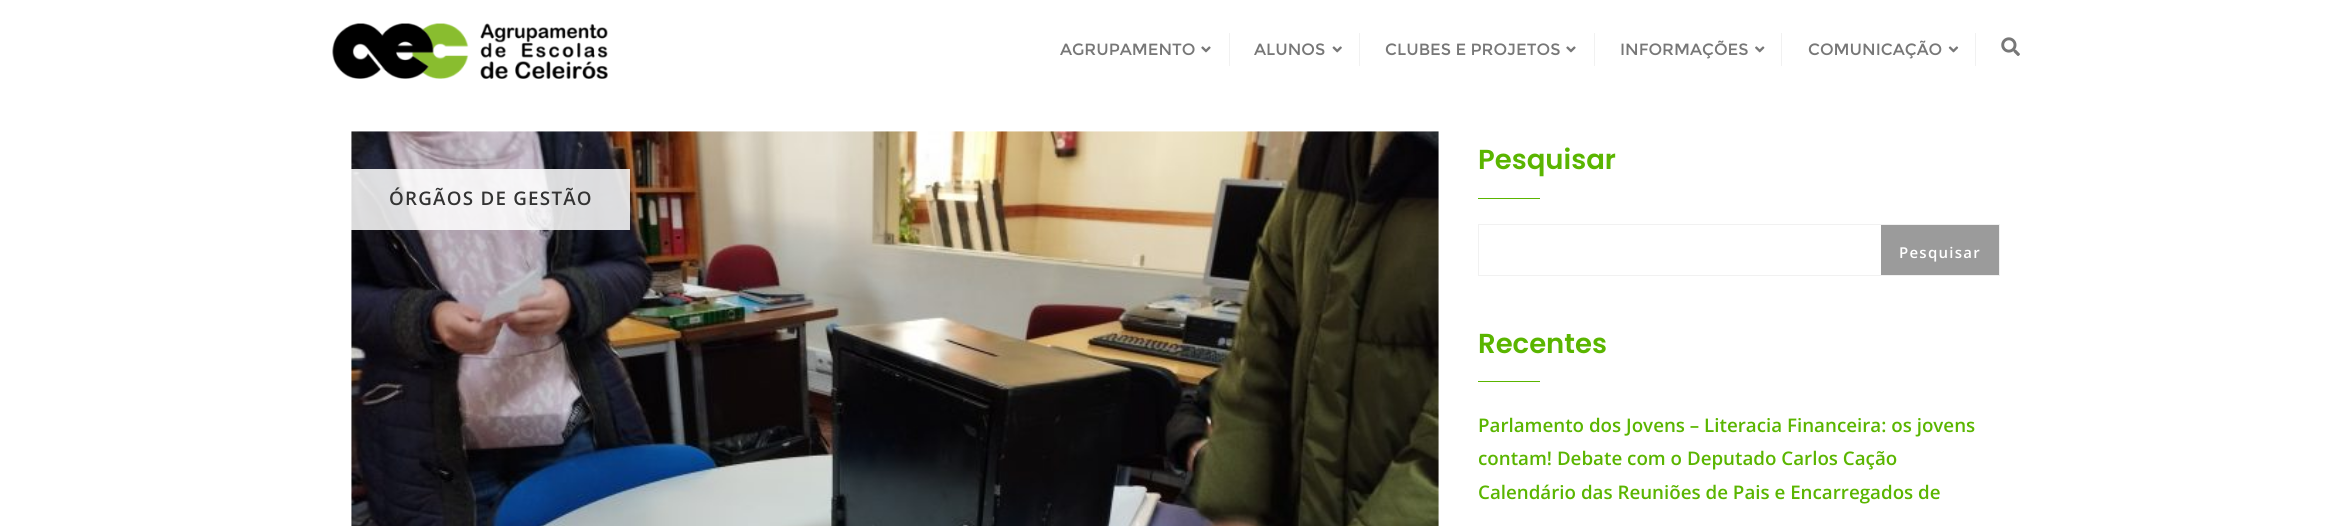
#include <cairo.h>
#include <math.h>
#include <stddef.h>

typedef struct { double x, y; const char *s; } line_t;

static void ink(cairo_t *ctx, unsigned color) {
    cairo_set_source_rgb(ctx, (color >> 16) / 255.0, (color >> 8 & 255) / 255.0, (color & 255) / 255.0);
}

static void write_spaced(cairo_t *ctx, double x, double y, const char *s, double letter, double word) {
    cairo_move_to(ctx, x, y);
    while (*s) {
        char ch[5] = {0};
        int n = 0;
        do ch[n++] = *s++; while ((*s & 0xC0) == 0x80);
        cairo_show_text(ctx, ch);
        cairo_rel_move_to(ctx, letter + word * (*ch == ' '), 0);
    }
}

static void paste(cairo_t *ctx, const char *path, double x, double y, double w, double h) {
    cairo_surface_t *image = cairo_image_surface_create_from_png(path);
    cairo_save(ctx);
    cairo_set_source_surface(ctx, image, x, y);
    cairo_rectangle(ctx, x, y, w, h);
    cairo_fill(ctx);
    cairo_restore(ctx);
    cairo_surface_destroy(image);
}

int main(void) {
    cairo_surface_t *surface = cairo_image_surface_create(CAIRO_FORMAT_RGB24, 2352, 526);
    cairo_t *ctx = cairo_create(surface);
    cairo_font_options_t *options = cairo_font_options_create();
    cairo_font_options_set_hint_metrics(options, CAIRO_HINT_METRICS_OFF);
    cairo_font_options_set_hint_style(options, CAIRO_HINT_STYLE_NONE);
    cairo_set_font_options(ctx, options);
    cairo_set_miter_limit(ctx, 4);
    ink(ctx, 0xFFFFFF);
    cairo_paint(ctx);
    paste(ctx, "media/1.png", 332, 23, 276, 56);
    cairo_select_font_face(ctx, "Montserrat", CAIRO_FONT_SLANT_NORMAL, CAIRO_FONT_WEIGHT_NORMAL);
    cairo_set_font_size(ctx, 16.25);
    ink(ctx, 0x777777);
    cairo_move_to(ctx, 1060, 55);
    cairo_show_text(ctx, "AGRUPAMENTO");
    paste(ctx, "media/2.png", 1201, 46, 10, 7);
    ink(ctx, 0xF1F1F1);
    cairo_rectangle(ctx, 1229, 33, 1, 33);
    cairo_fill(ctx);
    ink(ctx, 0x777777);
    cairo_move_to(ctx, 1254, 55);
    cairo_show_text(ctx, "ALUNOS");
    paste(ctx, "media/3.png", 1332, 46, 10, 7);
    ink(ctx, 0xF1F1F1);
    cairo_rectangle(ctx, 1359, 33, 1, 33);
    cairo_fill(ctx);
    ink(ctx, 0x777777);
    cairo_move_to(ctx, 1385, 55);
    cairo_show_text(ctx, "CLUBES E PROJETOS");
    paste(ctx, "media/2.png", 1566, 46, 10, 7);
    ink(ctx, 0xF1F1F1);
    cairo_rectangle(ctx, 1594, 33, 1, 33);
    cairo_fill(ctx);
    ink(ctx, 0x777777);
    cairo_move_to(ctx, 1620, 55);
    cairo_show_text(ctx, "INFORMAÇÕES");
    paste(ctx, "media/4.png", 1755, 46, 10, 7);
    ink(ctx, 0xF1F1F1);
    cairo_rectangle(ctx, 1781, 33, 1, 33);
    cairo_fill(ctx);
    ink(ctx, 0x777777);
    cairo_move_to(ctx, 1808, 55);
    cairo_show_text(ctx, "COMUNICAÇÃO");
    paste(ctx, "media/5.png", 1948, 46, 11, 7);
    ink(ctx, 0xF1F1F1);
    cairo_rectangle(ctx, 1975, 33, 1, 33);
    cairo_fill(ctx);
    paste(ctx, "media/6.png", 2001, 37, 19, 19);
    paste(ctx, "media/7.png", 351, 131, 1088, 395);
    cairo_set_source_rgba(ctx, 1, 1, 1, 0.85);
    cairo_rectangle(ctx, 351, 169, 279, 61);
    cairo_fill(ctx);
    cairo_select_font_face(ctx, "Open Sans SemiBold", CAIRO_FONT_SLANT_NORMAL, CAIRO_FONT_WEIGHT_NORMAL);
    cairo_set_font_size(ctx, 18.75);
    ink(ctx, 0x333333);
    write_spaced(ctx, 389, 205, "ÓRGÃOS DE GESTÃO", 1.25, 0);
    cairo_select_font_face(ctx, "Poppins SemiBold", CAIRO_FONT_SLANT_NORMAL, CAIRO_FONT_WEIGHT_NORMAL);
    cairo_set_font_size(ctx, 27.5);
    ink(ctx, 0x5AB500);
    cairo_move_to(ctx, 1478, 169);
    cairo_show_text(ctx, "Pesquisar");
    cairo_rectangle(ctx, 1478, 198, 62, 1);
    cairo_fill(ctx);
    cairo_rectangle(ctx, 1478.5, 224.5, 521, 51);
    ink(ctx, 0xF1F1F1);
    cairo_set_line_width(ctx, 1);
    cairo_stroke(ctx);
    ink(ctx, 0x9B9B9B);
    cairo_rectangle(ctx, 1881, 225, 118, 50);
    cairo_fill(ctx);
    cairo_select_font_face(ctx, "Open Sans SemiBold", CAIRO_FONT_SLANT_NORMAL, CAIRO_FONT_WEIGHT_NORMAL);
    cairo_set_font_size(ctx, 15);
    ink(ctx, 0xFFFFFF);
    write_spaced(ctx, 1899, 258, "Pesquisar", 1.25, 0);
    cairo_select_font_face(ctx, "Poppins SemiBold", CAIRO_FONT_SLANT_NORMAL, CAIRO_FONT_WEIGHT_NORMAL);
    cairo_set_font_size(ctx, 27.5);
    ink(ctx, 0x5AB500);
    cairo_move_to(ctx, 1478, 353);
    cairo_show_text(ctx, "Recentes");
    cairo_rectangle(ctx, 1478, 381, 62, 1);
    cairo_fill(ctx);
    cairo_select_font_face(ctx, "Open Sans SemiBold", CAIRO_FONT_SLANT_NORMAL, CAIRO_FONT_WEIGHT_NORMAL);
    cairo_set_font_size(ctx, 18.75);
    {
        static const line_t items[] = {
            {1478, 432, "Parlamento dos Jovens – Literacia Financeira: os jovens"},
            {1478, 465, "contam! Debate com o Deputado Carlos Cação"},
            {1478, 499, "Calendário das Reuniões de Pais e Encarregados de"},
        };
        for (size_t i = 0; i < sizeof items / sizeof *items; i++) {
            cairo_move_to(ctx, items[i].x, items[i].y);
            cairo_show_text(ctx, items[i].s);
        }
    }
    cairo_surface_write_to_png(surface, "image.png");
    cairo_font_options_destroy(options);
    cairo_destroy(ctx);
    cairo_surface_destroy(surface);
    return 0;
}
